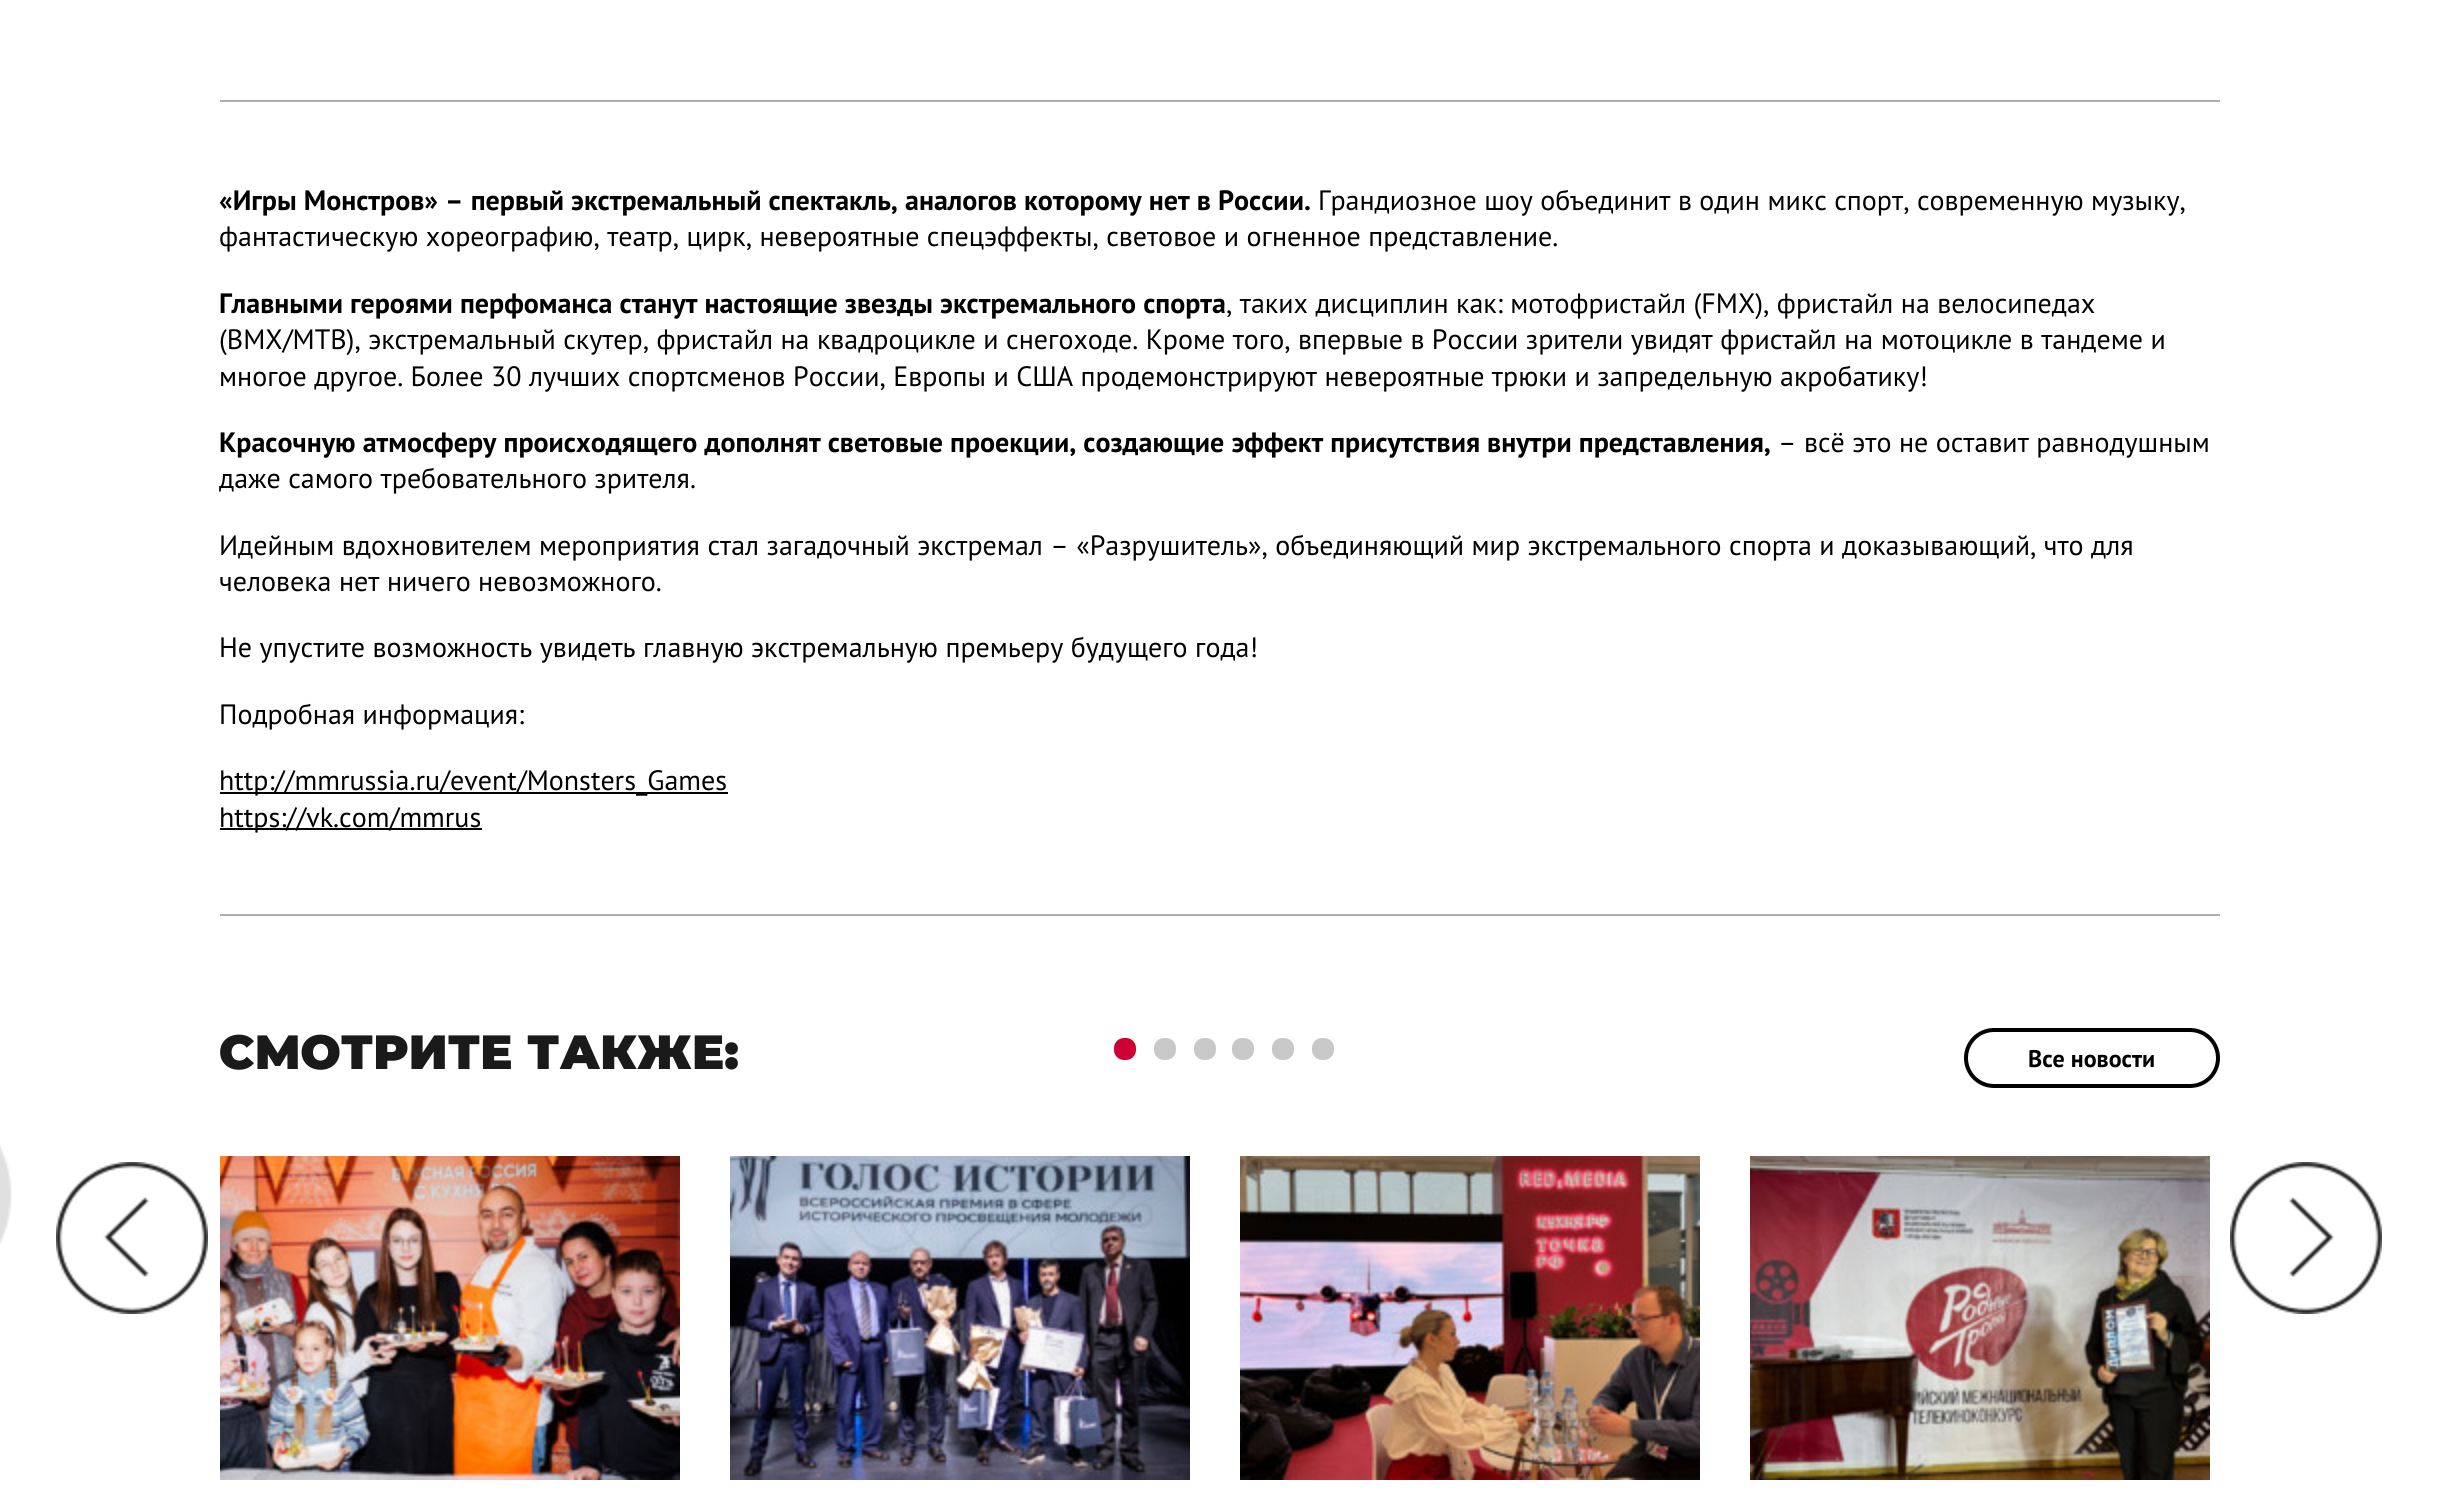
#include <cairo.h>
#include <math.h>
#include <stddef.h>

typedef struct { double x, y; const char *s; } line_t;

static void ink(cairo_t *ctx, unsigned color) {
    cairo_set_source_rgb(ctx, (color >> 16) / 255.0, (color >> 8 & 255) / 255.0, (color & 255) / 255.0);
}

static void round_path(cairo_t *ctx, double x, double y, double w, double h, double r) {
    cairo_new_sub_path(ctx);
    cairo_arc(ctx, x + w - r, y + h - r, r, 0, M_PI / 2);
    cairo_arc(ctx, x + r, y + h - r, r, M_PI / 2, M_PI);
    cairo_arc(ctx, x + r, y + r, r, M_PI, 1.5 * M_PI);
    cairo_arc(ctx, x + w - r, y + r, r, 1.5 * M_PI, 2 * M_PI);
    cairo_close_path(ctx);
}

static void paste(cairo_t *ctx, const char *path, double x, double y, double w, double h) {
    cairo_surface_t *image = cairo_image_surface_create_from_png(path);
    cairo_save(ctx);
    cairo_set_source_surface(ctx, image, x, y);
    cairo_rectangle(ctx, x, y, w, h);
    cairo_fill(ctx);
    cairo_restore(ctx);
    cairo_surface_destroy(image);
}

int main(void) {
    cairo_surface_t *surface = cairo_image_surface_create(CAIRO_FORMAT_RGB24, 2437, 1501);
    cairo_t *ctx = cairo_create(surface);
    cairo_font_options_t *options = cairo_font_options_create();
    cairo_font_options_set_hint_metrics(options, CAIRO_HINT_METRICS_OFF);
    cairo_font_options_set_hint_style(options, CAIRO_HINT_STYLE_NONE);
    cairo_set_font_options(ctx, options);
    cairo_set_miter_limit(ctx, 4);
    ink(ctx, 0xFFFFFF);
    cairo_paint(ctx);
    paste(ctx, "media/1.png", 0, 1145, 12, 100);
    ink(ctx, 0xB1AEB0);
    cairo_rectangle(ctx, 220, 100, 2000, 2);
    cairo_fill(ctx);
    cairo_select_font_face(ctx, "PT Sans", CAIRO_FONT_SLANT_NORMAL, CAIRO_FONT_WEIGHT_BOLD);
    cairo_set_font_size(ctx, 28);
    ink(ctx, 0x000000);
    cairo_move_to(ctx, 219, 210);
    cairo_show_text(ctx, "«Игры Монстров» – первый экстремальный спектакль, аналогов которому нет в России.");
    cairo_select_font_face(ctx, "PT Sans", CAIRO_FONT_SLANT_NORMAL, CAIRO_FONT_WEIGHT_NORMAL);
    cairo_move_to(ctx, 1318, 210);
    cairo_show_text(ctx, "Грандиозное шоу объединит в один микс спорт, современную музыку,");
    cairo_move_to(ctx, 219, 246);
    cairo_show_text(ctx, "фантастическую хореографию, театр, цирк, невероятные спецэффекты, световое и огненное представление.");
    cairo_select_font_face(ctx, "PT Sans", CAIRO_FONT_SLANT_NORMAL, CAIRO_FONT_WEIGHT_BOLD);
    cairo_move_to(ctx, 219, 313);
    cairo_show_text(ctx, "Главными героями перфоманса станут настоящие звезды экстремального спорта");
    cairo_select_font_face(ctx, "PT Sans", CAIRO_FONT_SLANT_NORMAL, CAIRO_FONT_WEIGHT_NORMAL);
    {
        static const line_t items[] = {
            {1226, 313, ", таких дисциплин как: мотофристайл (FMX), фристайл на велосипедах"},
            {219, 349, "(BMX/MTB), экстремальный скутер, фристайл на квадроцикле и снегоходе. Кроме того, впервые в России зрители увидят фристайл на мотоцикле в тандеме и"},
            {219, 386, "многое другое. Более 30 лучших спортсменов России, Европы и США продемонстрируют невероятные трюки и запредельную акробатику!"},
        };
        for (size_t i = 0; i < sizeof items / sizeof *items; i++) {
            cairo_move_to(ctx, items[i].x, items[i].y);
            cairo_show_text(ctx, items[i].s);
        }
    }
    cairo_select_font_face(ctx, "PT Sans", CAIRO_FONT_SLANT_NORMAL, CAIRO_FONT_WEIGHT_BOLD);
    cairo_move_to(ctx, 219, 452);
    cairo_show_text(ctx, "Красочную атмосферу происходящего дополнят световые проекции, создающие эффект присутствия внутри представления,");
    cairo_select_font_face(ctx, "PT Sans", CAIRO_FONT_SLANT_NORMAL, CAIRO_FONT_WEIGHT_NORMAL);
    {
        static const line_t items[] = {
            {1778, 452, "– всё это не оставит равнодушным"},
            {219, 488, "даже самого требовательного зрителя."},
            {219, 555, "Идейным вдохновителем мероприятия стал загадочный экстремал – «Разрушитель», объединяющий мир экстремального спорта и доказывающий, что для"},
            {219, 591, "человека нет ничего невозможного."},
            {219, 657, "Не упустите возможность увидеть главную экстремальную премьеру будущего года!"},
            {219, 724, "Подробная информация:"},
        };
        for (size_t i = 0; i < sizeof items / sizeof *items; i++) {
            cairo_move_to(ctx, items[i].x, items[i].y);
            cairo_show_text(ctx, items[i].s);
        }
    }
    cairo_rectangle(ctx, 220, 792, 508, 2);
    cairo_fill(ctx);
    cairo_move_to(ctx, 219, 790);
    cairo_show_text(ctx, "http://mmrussia.ru/event/Monsters_Games");
    cairo_rectangle(ctx, 220, 828, 262, 2);
    cairo_fill(ctx);
    cairo_move_to(ctx, 219, 827);
    cairo_show_text(ctx, "https://vk.com/mmrus");
    ink(ctx, 0xB1AEB0);
    cairo_rectangle(ctx, 220, 914, 2000, 2);
    cairo_fill(ctx);
    cairo_select_font_face(ctx, "Montserrat Black", CAIRO_FONT_SLANT_NORMAL, CAIRO_FONT_WEIGHT_NORMAL);
    cairo_set_font_size(ctx, 48);
    ink(ctx, 0x1A1A1A);
    cairo_move_to(ctx, 219, 1069);
    cairo_show_text(ctx, "СМОТРИТЕ ТАКЖЕ:");
    ink(ctx, 0xCC0033);
    round_path(ctx, 1114, 1038, 22, 22, 10);
    cairo_fill(ctx);
    ink(ctx, 0xC8C8C8);
    round_path(ctx, 1154, 1038, 22, 22, 10);
    cairo_fill(ctx);
    round_path(ctx, 1194, 1038, 22, 22, 10);
    cairo_fill(ctx);
    round_path(ctx, 1232, 1038, 22, 22, 10);
    cairo_fill(ctx);
    round_path(ctx, 1272, 1038, 22, 22, 10);
    cairo_fill(ctx);
    round_path(ctx, 1312, 1038, 22, 22, 10);
    cairo_fill(ctx);
    round_path(ctx, 1966, 1030, 252, 56, 28);
    ink(ctx, 0x000000);
    cairo_set_line_width(ctx, 4);
    cairo_stroke(ctx);
    cairo_select_font_face(ctx, "PT Sans", CAIRO_FONT_SLANT_NORMAL, CAIRO_FONT_WEIGHT_BOLD);
    cairo_set_font_size(ctx, 24);
    cairo_move_to(ctx, 2028, 1067);
    cairo_show_text(ctx, "Все новости");
    paste(ctx, "media/2.png", 220, 1156, 460, 324);
    paste(ctx, "media/3.png", 730, 1156, 460, 324);
    paste(ctx, "media/4.png", 1240, 1156, 460, 324);
    paste(ctx, "media/5.png", 1750, 1156, 460, 324);
    paste(ctx, "media/6.png", 56, 1162, 152, 152);
    paste(ctx, "media/7.png", 2230, 1162, 152, 152);
    cairo_surface_write_to_png(surface, "image.png");
    cairo_font_options_destroy(options);
    cairo_destroy(ctx);
    cairo_surface_destroy(surface);
    return 0;
}
